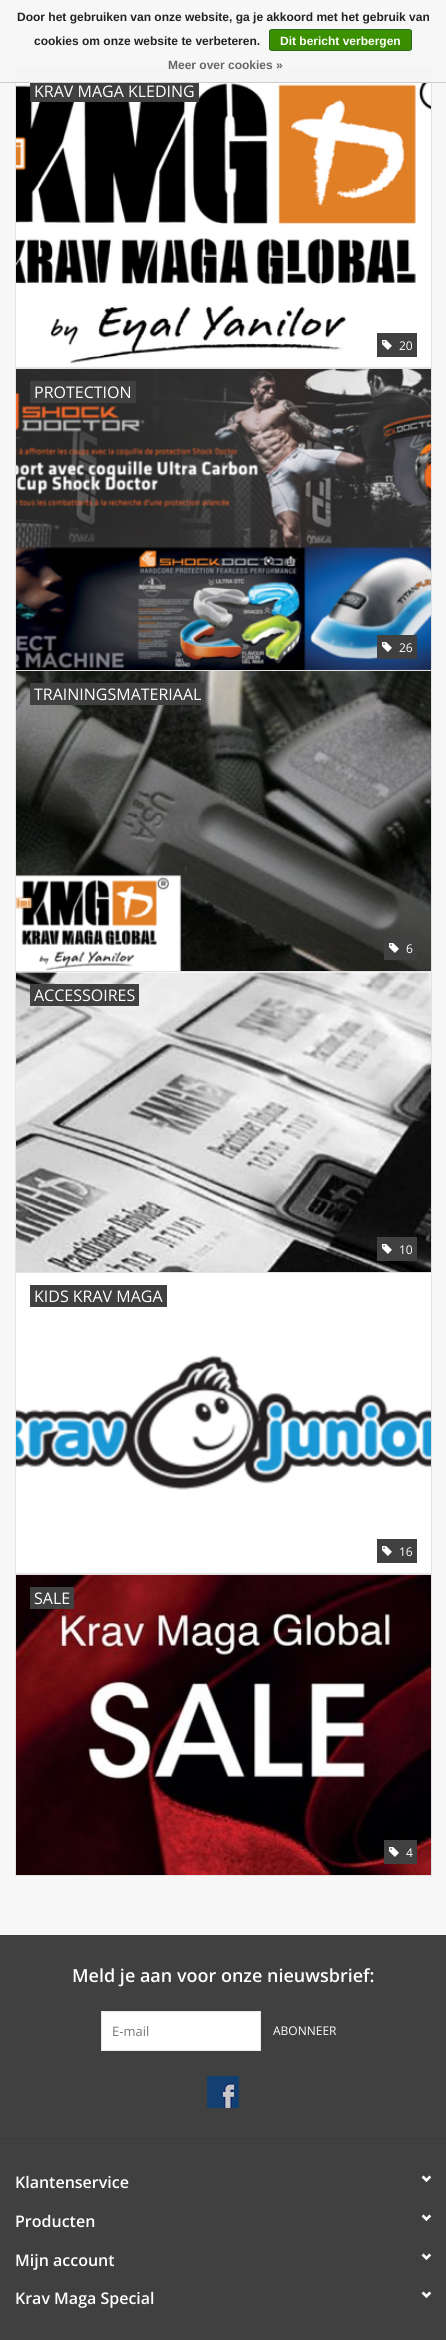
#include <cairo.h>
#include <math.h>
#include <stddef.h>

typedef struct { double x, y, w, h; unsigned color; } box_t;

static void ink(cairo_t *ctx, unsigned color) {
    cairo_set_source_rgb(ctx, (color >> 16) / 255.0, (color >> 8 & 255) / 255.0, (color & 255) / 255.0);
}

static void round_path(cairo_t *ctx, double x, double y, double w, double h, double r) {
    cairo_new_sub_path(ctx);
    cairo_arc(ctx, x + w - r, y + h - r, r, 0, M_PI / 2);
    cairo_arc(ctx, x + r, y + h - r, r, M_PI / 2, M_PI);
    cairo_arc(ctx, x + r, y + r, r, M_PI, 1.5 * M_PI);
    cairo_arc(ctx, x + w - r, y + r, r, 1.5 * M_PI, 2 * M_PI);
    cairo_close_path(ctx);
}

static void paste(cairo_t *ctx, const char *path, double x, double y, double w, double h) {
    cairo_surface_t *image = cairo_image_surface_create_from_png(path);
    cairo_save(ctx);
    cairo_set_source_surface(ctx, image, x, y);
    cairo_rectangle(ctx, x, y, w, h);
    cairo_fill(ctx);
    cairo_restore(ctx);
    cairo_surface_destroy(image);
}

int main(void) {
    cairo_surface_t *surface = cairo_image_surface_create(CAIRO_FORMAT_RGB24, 446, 2340);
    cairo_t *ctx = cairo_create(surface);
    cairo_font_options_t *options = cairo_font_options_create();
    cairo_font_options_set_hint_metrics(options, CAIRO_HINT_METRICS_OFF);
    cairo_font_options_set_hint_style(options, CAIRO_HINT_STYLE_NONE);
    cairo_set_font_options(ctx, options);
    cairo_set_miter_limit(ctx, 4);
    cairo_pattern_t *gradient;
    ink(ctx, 0xF7F7F7);
    cairo_paint(ctx);
    cairo_rectangle(ctx, 15.5, 67.5, 416, 301);
    ink(ctx, 0xE3E3E3);
    cairo_set_line_width(ctx, 1);
    cairo_stroke(ctx);
    paste(ctx, "media/1.png", 16, 83, 415, 285);
    {
        static const box_t items[] = {
            {195, 80, 4, 22, 0x404040},
            {30, 80, 4, 22, 0x404040},
            {15, 67, 417, 15, 0xF5F5F5},
            {0, 82, 446, 1, 0xCCCCCC},
        };
        for (size_t i = 0; i < sizeof items / sizeof *items; i++) {
            ink(ctx, items[i].color);
            cairo_rectangle(ctx, items[i].x, items[i].y, items[i].w, items[i].h);
            cairo_fill(ctx);
        }
    }
    cairo_select_font_face(ctx, "Liberation Sans", CAIRO_FONT_SLANT_NORMAL, CAIRO_FONT_WEIGHT_BOLD);
    cairo_set_font_size(ctx, 12);
    ink(ctx, 0x222222);
    cairo_move_to(ctx, 17, 21);
    cairo_show_text(ctx, "Door het gebruiken van onze website, ga je akkoord met het gebruik van");
    cairo_move_to(ctx, 34, 45);
    cairo_show_text(ctx, "cookies om onze website te verbeteren.");
    cairo_save(ctx);
    round_path(ctx, 269, 29, 143, 22, 3);
    cairo_clip(ctx);
    gradient = cairo_pattern_create_linear(341, 30, 341, 50);
    cairo_pattern_add_color_stop_rgba(gradient, 0, 0.235, 0.576, 0, 1);
    cairo_pattern_add_color_stop_rgba(gradient, 1, 0.224, 0.541, 0, 1);
    cairo_set_source(ctx, gradient);
    cairo_pattern_destroy(gradient);
    cairo_rectangle(ctx, 269, 30, 143, 20);
    cairo_fill(ctx);
    cairo_restore(ctx);
    round_path(ctx, 269.5, 29.5, 142, 21, 2.5);
    ink(ctx, 0x29691D);
    cairo_stroke(ctx);
    ink(ctx, 0xFFFFFF);
    cairo_move_to(ctx, 280, 45);
    cairo_show_text(ctx, "Dit bericht verbergen");
    ink(ctx, 0x666666);
    cairo_move_to(ctx, 168, 69);
    cairo_show_text(ctx, "Meer over cookies »");
    ink(ctx, 0x404040);
    cairo_rectangle(ctx, 34, 83, 161, 19);
    cairo_fill(ctx);
    cairo_select_font_face(ctx, "Open Sans", CAIRO_FONT_SLANT_NORMAL, CAIRO_FONT_WEIGHT_NORMAL);
    cairo_set_font_size(ctx, 16);
    ink(ctx, 0xFFFFFF);
    cairo_move_to(ctx, 34, 97);
    cairo_show_text(ctx, "KRAV MAGA KLEDING");
    ink(ctx, 0x404040);
    cairo_rectangle(ctx, 377, 333, 40, 24);
    cairo_fill(ctx);
    paste(ctx, "media/2.png", 382, 340, 10, 10);
    cairo_set_font_size(ctx, 12);
    ink(ctx, 0xFFFFFF);
    cairo_move_to(ctx, 399, 350);
    cairo_show_text(ctx, "20");
    cairo_rectangle(ctx, 15.5, 368.5, 416, 302);
    ink(ctx, 0xE3E3E3);
    cairo_stroke(ctx);
    paste(ctx, "media/3.png", 16, 369, 415, 301);
    ink(ctx, 0x404040);
    cairo_rectangle(ctx, 30, 381, 102, 22);
    cairo_fill(ctx);
    cairo_set_font_size(ctx, 16);
    ink(ctx, 0xFFFFFF);
    cairo_move_to(ctx, 34, 398);
    cairo_show_text(ctx, "PROTECTION");
    ink(ctx, 0x404040);
    cairo_rectangle(ctx, 132, 381, 4, 22);
    cairo_fill(ctx);
    cairo_rectangle(ctx, 377, 635, 40, 24);
    cairo_fill(ctx);
    paste(ctx, "media/2.png", 382, 642, 10, 10);
    cairo_set_font_size(ctx, 12);
    ink(ctx, 0xFFFFFF);
    cairo_move_to(ctx, 399, 652);
    cairo_show_text(ctx, "26");
    cairo_rectangle(ctx, 15.5, 670.5, 416, 301);
    ink(ctx, 0xE3E3E3);
    cairo_stroke(ctx);
    paste(ctx, "media/4.png", 16, 671, 415, 300);
    ink(ctx, 0x404040);
    cairo_rectangle(ctx, 30, 683, 171, 22);
    cairo_fill(ctx);
    cairo_set_font_size(ctx, 16);
    ink(ctx, 0xFFFFFF);
    cairo_move_to(ctx, 34, 700);
    cairo_show_text(ctx, "TRAININGSMATERIAAL");
    ink(ctx, 0x404040);
    cairo_rectangle(ctx, 201, 683, 4, 22);
    cairo_fill(ctx);
    cairo_rectangle(ctx, 384, 936, 33, 24);
    cairo_fill(ctx);
    paste(ctx, "media/2.png", 389, 943, 10, 10);
    cairo_set_font_size(ctx, 12);
    ink(ctx, 0xFFFFFF);
    cairo_move_to(ctx, 406, 953);
    cairo_show_text(ctx, "6");
    cairo_rectangle(ctx, 15.5, 971.5, 416, 301);
    ink(ctx, 0xE3E3E3);
    cairo_stroke(ctx);
    paste(ctx, "media/5.png", 16, 972, 415, 300);
    ink(ctx, 0x404040);
    cairo_rectangle(ctx, 30, 984, 105, 22);
    cairo_fill(ctx);
    cairo_set_font_size(ctx, 16);
    ink(ctx, 0xFFFFFF);
    cairo_move_to(ctx, 34, 1001);
    cairo_show_text(ctx, "ACCESSOIRES");
    ink(ctx, 0x404040);
    cairo_rectangle(ctx, 135, 984, 4, 22);
    cairo_fill(ctx);
    cairo_rectangle(ctx, 377, 1237, 40, 24);
    cairo_fill(ctx);
    paste(ctx, "media/2.png", 382, 1244, 10, 10);
    cairo_set_font_size(ctx, 12);
    ink(ctx, 0xFFFFFF);
    cairo_move_to(ctx, 399, 1254);
    cairo_show_text(ctx, "10");
    cairo_rectangle(ctx, 15.5, 1272.5, 416, 302);
    ink(ctx, 0xE3E3E3);
    cairo_stroke(ctx);
    paste(ctx, "media/6.png", 16, 1273, 415, 301);
    ink(ctx, 0x404040);
    cairo_rectangle(ctx, 30, 1285, 133, 22);
    cairo_fill(ctx);
    cairo_set_font_size(ctx, 16);
    ink(ctx, 0xFFFFFF);
    cairo_move_to(ctx, 34, 1302);
    cairo_show_text(ctx, "KIDS KRAV MAGA");
    ink(ctx, 0x404040);
    cairo_rectangle(ctx, 163, 1285, 4, 22);
    cairo_fill(ctx);
    cairo_rectangle(ctx, 377, 1539, 40, 24);
    cairo_fill(ctx);
    paste(ctx, "media/2.png", 382, 1546, 10, 10);
    cairo_set_font_size(ctx, 12);
    ink(ctx, 0xFFFFFF);
    cairo_move_to(ctx, 399, 1556);
    cairo_show_text(ctx, "16");
    cairo_rectangle(ctx, 15.5, 1574.5, 416, 301);
    ink(ctx, 0xE3E3E3);
    cairo_stroke(ctx);
    paste(ctx, "media/7.png", 16, 1575, 415, 300);
    ink(ctx, 0x404040);
    cairo_rectangle(ctx, 30, 1587, 40, 22);
    cairo_fill(ctx);
    cairo_set_font_size(ctx, 16);
    ink(ctx, 0xFFFFFF);
    cairo_move_to(ctx, 34, 1604);
    cairo_show_text(ctx, "SALE");
    ink(ctx, 0x404040);
    cairo_rectangle(ctx, 70, 1587, 4, 22);
    cairo_fill(ctx);
    cairo_rectangle(ctx, 384, 1840, 33, 24);
    cairo_fill(ctx);
    paste(ctx, "media/2.png", 389, 1847, 10, 10);
    cairo_set_font_size(ctx, 12);
    ink(ctx, 0xFFFFFF);
    cairo_move_to(ctx, 406, 1857);
    cairo_show_text(ctx, "4");
    ink(ctx, 0x404040);
    cairo_rectangle(ctx, 0, 1936, 446, 404);
    cairo_fill(ctx);
    ink(ctx, 0x3B3B3B);
    cairo_rectangle(ctx, 0, 1935, 446, 1);
    cairo_fill(ctx);
    cairo_select_font_face(ctx, "Open Sans SemiBold", CAIRO_FONT_SLANT_NORMAL, CAIRO_FONT_WEIGHT_NORMAL);
    cairo_set_font_size(ctx, 18);
    ink(ctx, 0xFFFFFF);
    cairo_move_to(ctx, 72, 1982);
    cairo_show_text(ctx, "Meld je aan voor onze nieuwsbrief:");
    cairo_rectangle(ctx, 101.5, 2011.5, 159, 39);
    cairo_fill_preserve(ctx);
    ink(ctx, 0xE9E9E9);
    cairo_stroke(ctx);
    cairo_select_font_face(ctx, "Open Sans", CAIRO_FONT_SLANT_NORMAL, CAIRO_FONT_WEIGHT_NORMAL);
    cairo_set_font_size(ctx, 13);
    ink(ctx, 0x757575);
    cairo_move_to(ctx, 112, 2036);
    cairo_show_text(ctx, "E-mail");
    cairo_set_font_size(ctx, 12);
    ink(ctx, 0xFFFFFF);
    cairo_move_to(ctx, 273, 2035);
    cairo_show_text(ctx, "ABONNEER");
    paste(ctx, "media/8.png", 207, 2076, 32, 32);
    ink(ctx, 0x3B3B3B);
    cairo_rectangle(ctx, 0, 2138, 446, 1);
    cairo_fill(ctx);
    cairo_select_font_face(ctx, "Open Sans SemiBold", CAIRO_FONT_SLANT_NORMAL, CAIRO_FONT_WEIGHT_NORMAL);
    cairo_set_font_size(ctx, 16);
    ink(ctx, 0xFFFFFF);
    cairo_move_to(ctx, 15, 2188);
    cairo_show_text(ctx, "Klantenservice");
    paste(ctx, "media/9.png", 421, 2175, 11, 8);
    cairo_move_to(ctx, 15, 2227);
    cairo_show_text(ctx, "Producten");
    paste(ctx, "media/9.png", 421, 2214, 11, 8);
    cairo_move_to(ctx, 15, 2266);
    cairo_show_text(ctx, "Mijn account");
    paste(ctx, "media/9.png", 421, 2253, 11, 8);
    cairo_move_to(ctx, 15, 2304);
    cairo_show_text(ctx, "Krav Maga Special");
    paste(ctx, "media/9.png", 421, 2291, 11, 8);
    cairo_surface_write_to_png(surface, "image.png");
    cairo_font_options_destroy(options);
    cairo_destroy(ctx);
    cairo_surface_destroy(surface);
    return 0;
}
